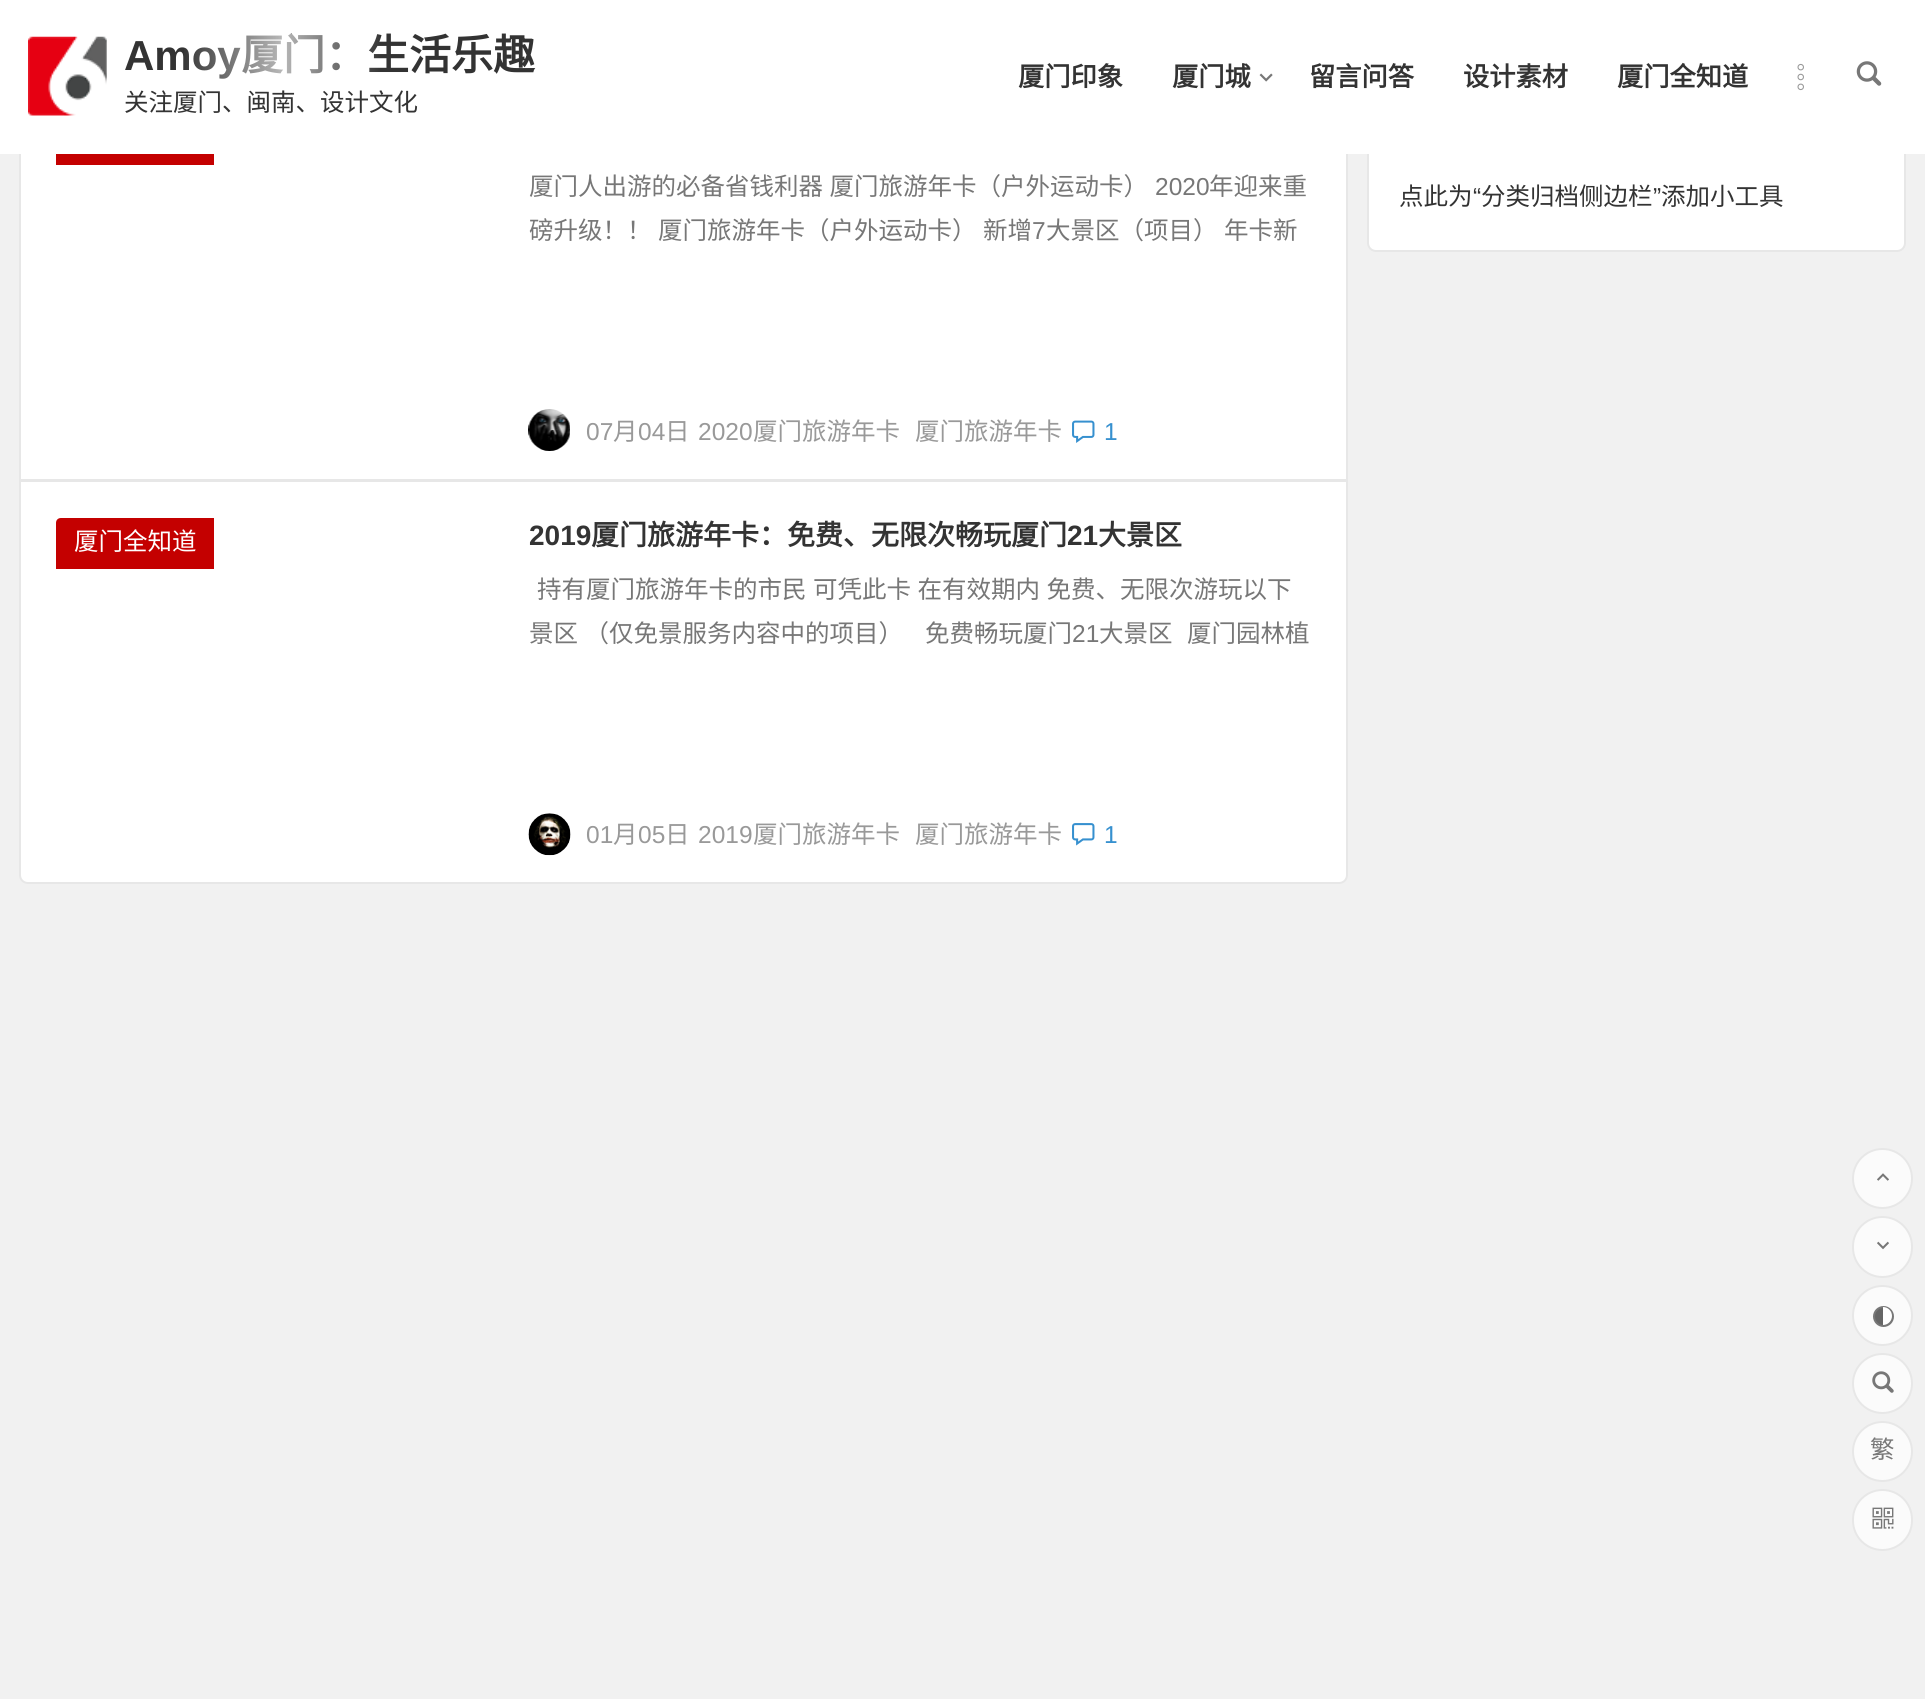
#include <cairo.h>
#include <math.h>
#include <stddef.h>

typedef struct { double x, y; const char *s; } line_t;

static void ink(cairo_t *ctx, unsigned color) {
    cairo_set_source_rgb(ctx, (color >> 16) / 255.0, (color >> 8 & 255) / 255.0, (color & 255) / 255.0);
}

static void write_spaced(cairo_t *ctx, double x, double y, const char *s, double letter, double word) {
    cairo_move_to(ctx, x, y);
    while (*s) {
        char ch[5] = {0};
        int n = 0;
        do ch[n++] = *s++; while ((*s & 0xC0) == 0x80);
        cairo_show_text(ctx, ch);
        cairo_rel_move_to(ctx, letter + word * (*ch == ' '), 0);
    }
}

static void round_path(cairo_t *ctx, double x, double y, double w, double h, double r) {
    cairo_new_sub_path(ctx);
    cairo_arc(ctx, x + w - r, y + h - r, r, 0, M_PI / 2);
    cairo_arc(ctx, x + r, y + h - r, r, M_PI / 2, M_PI);
    cairo_arc(ctx, x + r, y + r, r, M_PI, 1.5 * M_PI);
    cairo_arc(ctx, x + w - r, y + r, r, 1.5 * M_PI, 2 * M_PI);
    cairo_close_path(ctx);
}

static void paste(cairo_t *ctx, const char *path, double x, double y, double w, double h) {
    cairo_surface_t *image = cairo_image_surface_create_from_png(path);
    cairo_save(ctx);
    cairo_set_source_surface(ctx, image, x, y);
    cairo_rectangle(ctx, x, y, w, h);
    cairo_fill(ctx);
    cairo_restore(ctx);
    cairo_surface_destroy(image);
}

int main(void) {
    cairo_surface_t *surface = cairo_image_surface_create(CAIRO_FORMAT_RGB24, 1925, 1699);
    cairo_t *ctx = cairo_create(surface);
    cairo_font_options_t *options = cairo_font_options_create();
    cairo_font_options_set_hint_metrics(options, CAIRO_HINT_METRICS_OFF);
    cairo_font_options_set_hint_style(options, CAIRO_HINT_STYLE_NONE);
    cairo_set_font_options(ctx, options);
    cairo_set_miter_limit(ctx, 4);
    cairo_pattern_t *gradient;
    ink(ctx, 0xF1F1F1);
    cairo_paint(ctx);
    ink(ctx, 0xFFFFFF);
    cairo_rectangle(ctx, 21, 154, 1325, 325);
    cairo_fill(ctx);
    cairo_rectangle(ctx, 20, 76, 1327, 404);
    ink(ctx, 0xE7E7E7);
    cairo_stroke(ctx);
    ink(ctx, 0xFFFFFF);
    round_path(ctx, 1368, 76, 537, 175, 8);
    cairo_fill_preserve(ctx);
    ink(ctx, 0xE7E7E7);
    cairo_stroke(ctx);
    ink(ctx, 0xFFFFFF);
    cairo_rectangle(ctx, 0, 0, 1925, 154);
    cairo_fill(ctx);
    paste(ctx, "media/1.png", 28, 36, 79, 80);
    cairo_select_font_face(ctx, "Liberation Sans", CAIRO_FONT_SLANT_NORMAL, CAIRO_FONT_WEIGHT_BOLD);
    cairo_set_font_size(ctx, 42);
    ink(ctx, 0x333333);
    cairo_move_to(ctx, 124, 70);
    cairo_show_text(ctx, "Amoy");
    cairo_select_font_face(ctx, "Noto Sans CJK SC", CAIRO_FONT_SLANT_NORMAL, CAIRO_FONT_WEIGHT_BOLD);
    cairo_move_to(ctx, 241, 70);
    cairo_show_text(ctx, "厦门：生活乐趣");
    gradient = cairo_pattern_create_linear(-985, 77, 1549, 77);
    cairo_pattern_add_color_stop_rgba(gradient, 0.46, 1, 1, 1, 0);
    cairo_pattern_add_color_stop_rgba(gradient, 0.5, 1, 1, 1, 0.65);
    cairo_pattern_add_color_stop_rgba(gradient, 0.54, 1, 1, 1, 0);
    cairo_set_source(ctx, gradient);
    cairo_pattern_destroy(gradient);
    cairo_rectangle(ctx, 184, 34, 196, 79);
    cairo_fill(ctx);
    cairo_select_font_face(ctx, "Noto Sans CJK SC", CAIRO_FONT_SLANT_NORMAL, CAIRO_FONT_WEIGHT_NORMAL);
    cairo_set_font_size(ctx, 24.5);
    ink(ctx, 0x333333);
    cairo_move_to(ctx, 124, 111);
    cairo_show_text(ctx, "关注厦门、闽南、设计文化");
    cairo_select_font_face(ctx, "Noto Sans CJK SC", CAIRO_FONT_SLANT_NORMAL, CAIRO_FONT_WEIGHT_BOLD);
    cairo_set_font_size(ctx, 26.25);
    cairo_move_to(ctx, 1018, 86);
    cairo_show_text(ctx, "厦门印象");
    cairo_move_to(ctx, 1172, 86);
    cairo_show_text(ctx, "厦门城");
    paste(ctx, "media/2.png", 1259, 73, 14, 9);
    {
        static const line_t items[] = {
            {1309, 86, "留言问答"},
            {1463, 86, "设计素材"},
            {1617, 86, "厦门全知道"},
        };
        for (size_t i = 0; i < sizeof items / sizeof *items; i++) {
            cairo_move_to(ctx, items[i].x, items[i].y);
            cairo_show_text(ctx, items[i].s);
        }
    }
    paste(ctx, "media/3.png", 1797, 63, 7, 28);
    paste(ctx, "media/4.png", 1856, 61, 26, 25);
    ink(ctx, 0xC40000);
    cairo_rectangle(ctx, 56, 154, 158, 11);
    cairo_fill(ctx);
    cairo_select_font_face(ctx, "Noto Sans CJK SC", CAIRO_FONT_SLANT_NORMAL, CAIRO_FONT_WEIGHT_NORMAL);
    cairo_set_font_size(ctx, 24.5);
    ink(ctx, 0x777777);
    write_spaced(ctx, 529, 195, "厦门人出游的必备省钱利器 厦门旅游年卡（户外运动卡）", 0, 1);
    cairo_select_font_face(ctx, "Liberation Sans", CAIRO_FONT_SLANT_NORMAL, CAIRO_FONT_WEIGHT_NORMAL);
    cairo_move_to(ctx, 1155, 195);
    cairo_show_text(ctx, "2020");
    cairo_select_font_face(ctx, "Noto Sans CJK SC", CAIRO_FONT_SLANT_NORMAL, CAIRO_FONT_WEIGHT_NORMAL);
    cairo_move_to(ctx, 1209, 195);
    cairo_show_text(ctx, "年迎来重");
    write_spaced(ctx, 529, 239, "磅升级！！ 厦门旅游年卡（户外运动卡） 新增", 0, 1);
    cairo_select_font_face(ctx, "Liberation Sans", CAIRO_FONT_SLANT_NORMAL, CAIRO_FONT_WEIGHT_NORMAL);
    cairo_move_to(ctx, 1032, 239);
    cairo_show_text(ctx, "7");
    cairo_select_font_face(ctx, "Noto Sans CJK SC", CAIRO_FONT_SLANT_NORMAL, CAIRO_FONT_WEIGHT_NORMAL);
    write_spaced(ctx, 1046, 239, "大景区（项目） 年卡新", 0, 1);
    paste(ctx, "media/5.png", 528, 409, 42, 42);
    cairo_select_font_face(ctx, "Liberation Sans", CAIRO_FONT_SLANT_NORMAL, CAIRO_FONT_WEIGHT_NORMAL);
    ink(ctx, 0x999999);
    cairo_move_to(ctx, 586, 440);
    cairo_show_text(ctx, "07");
    cairo_select_font_face(ctx, "Noto Sans CJK SC", CAIRO_FONT_SLANT_NORMAL, CAIRO_FONT_WEIGHT_NORMAL);
    cairo_move_to(ctx, 613, 440);
    cairo_show_text(ctx, "月");
    cairo_select_font_face(ctx, "Liberation Sans", CAIRO_FONT_SLANT_NORMAL, CAIRO_FONT_WEIGHT_NORMAL);
    cairo_move_to(ctx, 638, 440);
    cairo_show_text(ctx, "04");
    cairo_select_font_face(ctx, "Noto Sans CJK SC", CAIRO_FONT_SLANT_NORMAL, CAIRO_FONT_WEIGHT_NORMAL);
    cairo_move_to(ctx, 665, 440);
    cairo_show_text(ctx, "日");
    cairo_select_font_face(ctx, "Liberation Sans", CAIRO_FONT_SLANT_NORMAL, CAIRO_FONT_WEIGHT_NORMAL);
    cairo_move_to(ctx, 698, 440);
    cairo_show_text(ctx, "2020");
    cairo_select_font_face(ctx, "Noto Sans CJK SC", CAIRO_FONT_SLANT_NORMAL, CAIRO_FONT_WEIGHT_NORMAL);
    cairo_move_to(ctx, 753, 440);
    cairo_show_text(ctx, "厦门旅游年卡");
    cairo_move_to(ctx, 915, 440);
    cairo_show_text(ctx, "厦门旅游年卡");
    paste(ctx, "media/6.png", 1072, 420, 23, 23);
    cairo_select_font_face(ctx, "Liberation Sans", CAIRO_FONT_SLANT_NORMAL, CAIRO_FONT_WEIGHT_NORMAL);
    ink(ctx, 0x3690CF);
    cairo_move_to(ctx, 1104, 440);
    cairo_show_text(ctx, "1");
    ink(ctx, 0xFFFFFF);
    cairo_new_path(ctx);
    cairo_move_to(ctx, 20, 481);
    cairo_line_to(ctx, 1347, 481);
    cairo_line_to(ctx, 1347, 875);
    cairo_curve_to(ctx, 1347, 879.5, 1343.5, 883, 1339, 883);
    cairo_line_to(ctx, 28, 883);
    cairo_curve_to(ctx, 23.5, 883, 20, 879.5, 20, 875);
    cairo_close_path(ctx);
    cairo_fill_preserve(ctx);
    ink(ctx, 0xE7E7E7);
    cairo_stroke(ctx);
    ink(ctx, 0xC40000);
    cairo_new_path(ctx);
    cairo_move_to(ctx, 61, 518);
    cairo_line_to(ctx, 214, 518);
    cairo_line_to(ctx, 214, 569);
    cairo_line_to(ctx, 56, 569);
    cairo_line_to(ctx, 56, 523);
    cairo_curve_to(ctx, 56, 520, 58, 518, 61, 518);
    cairo_close_path(ctx);
    cairo_fill(ctx);
    cairo_select_font_face(ctx, "Noto Sans CJK SC", CAIRO_FONT_SLANT_NORMAL, CAIRO_FONT_WEIGHT_NORMAL);
    ink(ctx, 0xFFFFFF);
    cairo_move_to(ctx, 74, 550);
    cairo_show_text(ctx, "厦门全知道");
    cairo_select_font_face(ctx, "Liberation Sans", CAIRO_FONT_SLANT_NORMAL, CAIRO_FONT_WEIGHT_BOLD);
    cairo_set_font_size(ctx, 28);
    ink(ctx, 0x333333);
    cairo_move_to(ctx, 529, 545);
    cairo_show_text(ctx, "2019");
    cairo_select_font_face(ctx, "Noto Sans CJK SC", CAIRO_FONT_SLANT_NORMAL, CAIRO_FONT_WEIGHT_BOLD);
    cairo_move_to(ctx, 591, 545);
    cairo_show_text(ctx, "厦门旅游年卡：免费、无限次畅玩厦门");
    cairo_select_font_face(ctx, "Liberation Sans", CAIRO_FONT_SLANT_NORMAL, CAIRO_FONT_WEIGHT_BOLD);
    cairo_move_to(ctx, 1067, 545);
    cairo_show_text(ctx, "21");
    cairo_select_font_face(ctx, "Noto Sans CJK SC", CAIRO_FONT_SLANT_NORMAL, CAIRO_FONT_WEIGHT_BOLD);
    cairo_move_to(ctx, 1098, 545);
    cairo_show_text(ctx, "大景区");
    cairo_select_font_face(ctx, "Noto Sans CJK SC", CAIRO_FONT_SLANT_NORMAL, CAIRO_FONT_WEIGHT_NORMAL);
    cairo_set_font_size(ctx, 24.5);
    ink(ctx, 0x777777);
    write_spaced(ctx, 537, 598, "持有厦门旅游年卡的市民 可凭此卡 在有效期内 免费、无限次游玩以下", 0, 1);
    write_spaced(ctx, 529, 642, "景区 （仅免景服务内容中的项目）", 0, 1);
    cairo_move_to(ctx, 925, 642);
    cairo_show_text(ctx, "免费畅玩厦门");
    cairo_select_font_face(ctx, "Liberation Sans", CAIRO_FONT_SLANT_NORMAL, CAIRO_FONT_WEIGHT_NORMAL);
    cairo_move_to(ctx, 1072, 642);
    cairo_show_text(ctx, "21");
    cairo_select_font_face(ctx, "Noto Sans CJK SC", CAIRO_FONT_SLANT_NORMAL, CAIRO_FONT_WEIGHT_NORMAL);
    cairo_move_to(ctx, 1099, 642);
    cairo_show_text(ctx, "大景区");
    cairo_move_to(ctx, 1187, 642);
    cairo_show_text(ctx, "厦门园林植");
    paste(ctx, "media/7.png", 528, 813, 43, 43);
    cairo_select_font_face(ctx, "Liberation Sans", CAIRO_FONT_SLANT_NORMAL, CAIRO_FONT_WEIGHT_NORMAL);
    ink(ctx, 0x999999);
    cairo_move_to(ctx, 586, 843);
    cairo_show_text(ctx, "01");
    cairo_select_font_face(ctx, "Noto Sans CJK SC", CAIRO_FONT_SLANT_NORMAL, CAIRO_FONT_WEIGHT_NORMAL);
    cairo_move_to(ctx, 613, 843);
    cairo_show_text(ctx, "月");
    cairo_select_font_face(ctx, "Liberation Sans", CAIRO_FONT_SLANT_NORMAL, CAIRO_FONT_WEIGHT_NORMAL);
    cairo_move_to(ctx, 638, 843);
    cairo_show_text(ctx, "05");
    cairo_select_font_face(ctx, "Noto Sans CJK SC", CAIRO_FONT_SLANT_NORMAL, CAIRO_FONT_WEIGHT_NORMAL);
    cairo_move_to(ctx, 665, 843);
    cairo_show_text(ctx, "日");
    cairo_select_font_face(ctx, "Liberation Sans", CAIRO_FONT_SLANT_NORMAL, CAIRO_FONT_WEIGHT_NORMAL);
    cairo_move_to(ctx, 698, 843);
    cairo_show_text(ctx, "2019");
    cairo_select_font_face(ctx, "Noto Sans CJK SC", CAIRO_FONT_SLANT_NORMAL, CAIRO_FONT_WEIGHT_NORMAL);
    cairo_move_to(ctx, 753, 843);
    cairo_show_text(ctx, "厦门旅游年卡");
    cairo_move_to(ctx, 915, 843);
    cairo_show_text(ctx, "厦门旅游年卡");
    paste(ctx, "media/8.png", 1072, 823, 23, 23);
    cairo_select_font_face(ctx, "Liberation Sans", CAIRO_FONT_SLANT_NORMAL, CAIRO_FONT_WEIGHT_NORMAL);
    ink(ctx, 0x3690CF);
    cairo_move_to(ctx, 1104, 843);
    cairo_show_text(ctx, "1");
    cairo_select_font_face(ctx, "Noto Sans CJK SC", CAIRO_FONT_SLANT_NORMAL, CAIRO_FONT_WEIGHT_NORMAL);
    ink(ctx, 0x333333);
    cairo_move_to(ctx, 1399, 205);
    cairo_show_text(ctx, "点此为");
    cairo_select_font_face(ctx, "Liberation Sans", CAIRO_FONT_SLANT_NORMAL, CAIRO_FONT_WEIGHT_NORMAL);
    cairo_move_to(ctx, 1473, 205);
    cairo_show_text(ctx, "“");
    cairo_select_font_face(ctx, "Noto Sans CJK SC", CAIRO_FONT_SLANT_NORMAL, CAIRO_FONT_WEIGHT_NORMAL);
    cairo_move_to(ctx, 1481, 205);
    cairo_show_text(ctx, "分类归档侧边栏");
    cairo_select_font_face(ctx, "Liberation Sans", CAIRO_FONT_SLANT_NORMAL, CAIRO_FONT_WEIGHT_NORMAL);
    cairo_move_to(ctx, 1653, 205);
    cairo_show_text(ctx, "”");
    cairo_select_font_face(ctx, "Noto Sans CJK SC", CAIRO_FONT_SLANT_NORMAL, CAIRO_FONT_WEIGHT_NORMAL);
    cairo_move_to(ctx, 1661, 205);
    cairo_show_text(ctx, "添加小工具");
    ink(ctx, 0xFBFBFB);
    cairo_new_path(ctx);
    cairo_arc(ctx, 1882.5, 1178.5, 29.5, 0, 2 * M_PI);
    cairo_fill_preserve(ctx);
    ink(ctx, 0xE7E7E7);
    cairo_stroke(ctx);
    paste(ctx, "media/9.png", 1877, 1173, 12, 8);
    ink(ctx, 0xFBFBFB);
    round_path(ctx, 1853, 1217, 59, 60, 29.5);
    cairo_fill_preserve(ctx);
    ink(ctx, 0xE7E7E7);
    cairo_stroke(ctx);
    paste(ctx, "media/10.png", 1877, 1241, 12, 9);
    ink(ctx, 0xFBFBFB);
    cairo_arc(ctx, 1882.5, 1315.5, 29.5, 0, 2 * M_PI);
    cairo_fill_preserve(ctx);
    ink(ctx, 0xE7E7E7);
    cairo_stroke(ctx);
    ink(ctx, 0x666666);
    cairo_arc(ctx, 1883.5, 1316.5, 9.5, 0, 2 * M_PI);
    cairo_fill_preserve(ctx);
    ink(ctx, 0x777777);
    cairo_stroke(ctx);
    ink(ctx, 0xFFFFFF);
    cairo_new_path(ctx);
    cairo_move_to(ctx, 1883, 1307);
    cairo_curve_to(ctx, 1888, 1307, 1892, 1311, 1892, 1316);
    cairo_curve_to(ctx, 1892, 1321, 1888, 1325, 1883, 1325);
    cairo_close_path(ctx);
    cairo_fill(ctx);
    ink(ctx, 0xFBFBFB);
    cairo_arc(ctx, 1882.5, 1383.5, 29.5, 0, 2 * M_PI);
    cairo_fill_preserve(ctx);
    ink(ctx, 0xE7E7E7);
    cairo_stroke(ctx);
    paste(ctx, "media/11.png", 1872, 1371, 22, 22);
    ink(ctx, 0xFBFBFB);
    cairo_arc(ctx, 1882.5, 1451.5, 29.5, 0, 2 * M_PI);
    cairo_fill_preserve(ctx);
    ink(ctx, 0xE7E7E7);
    cairo_stroke(ctx);
    ink(ctx, 0x777777);
    cairo_move_to(ctx, 1870, 1458);
    cairo_show_text(ctx, "繁");
    ink(ctx, 0xFBFBFB);
    round_path(ctx, 1853, 1490, 59, 60, 29.5);
    cairo_fill_preserve(ctx);
    ink(ctx, 0xE7E7E7);
    cairo_stroke(ctx);
    paste(ctx, "media/12.png", 1872, 1507, 22, 22);
    cairo_surface_write_to_png(surface, "image.png");
    cairo_font_options_destroy(options);
    cairo_destroy(ctx);
    cairo_surface_destroy(surface);
    return 0;
}
